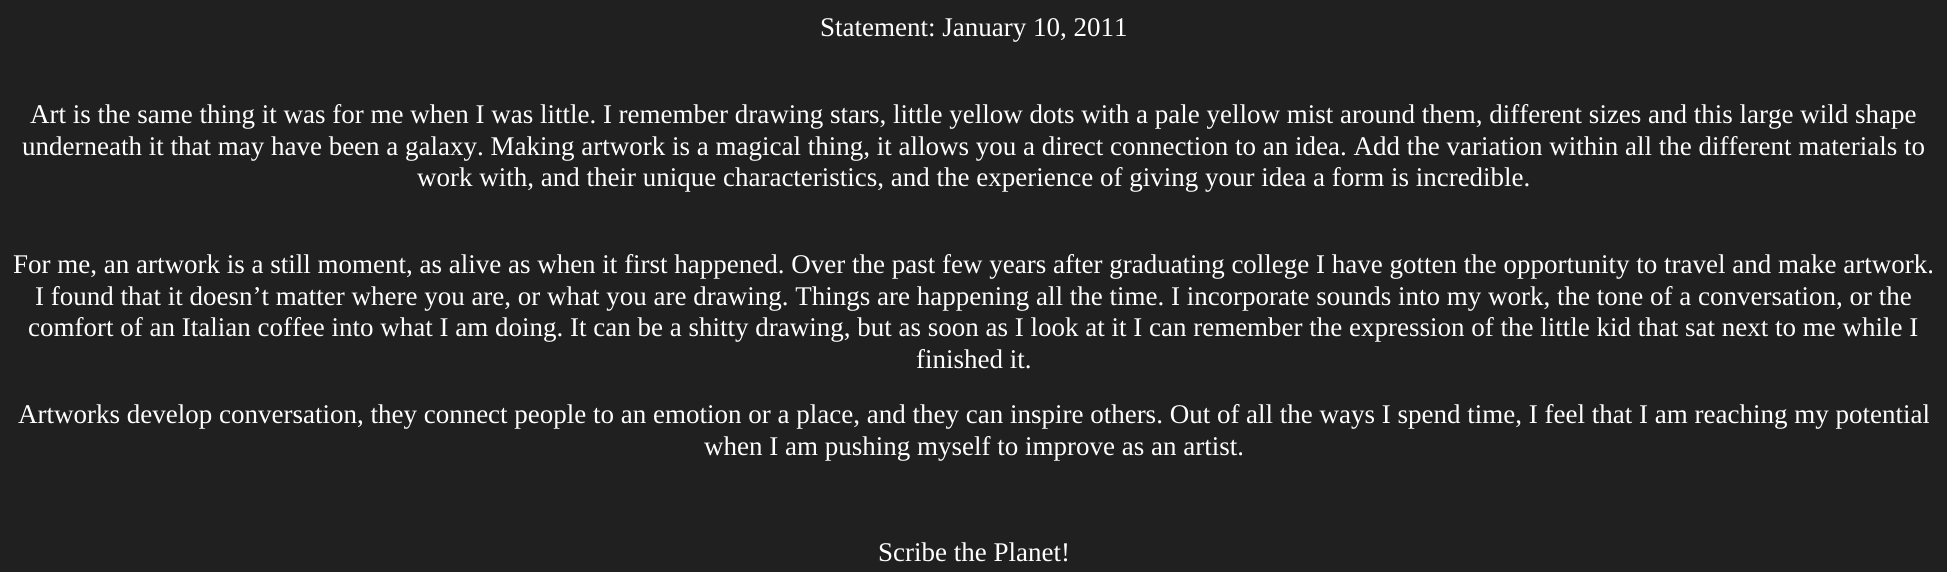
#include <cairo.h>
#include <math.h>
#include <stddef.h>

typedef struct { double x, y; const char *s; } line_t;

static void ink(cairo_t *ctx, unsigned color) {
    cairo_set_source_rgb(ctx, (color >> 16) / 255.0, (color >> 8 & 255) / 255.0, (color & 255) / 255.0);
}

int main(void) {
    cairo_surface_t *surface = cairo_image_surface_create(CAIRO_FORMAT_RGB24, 1947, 572);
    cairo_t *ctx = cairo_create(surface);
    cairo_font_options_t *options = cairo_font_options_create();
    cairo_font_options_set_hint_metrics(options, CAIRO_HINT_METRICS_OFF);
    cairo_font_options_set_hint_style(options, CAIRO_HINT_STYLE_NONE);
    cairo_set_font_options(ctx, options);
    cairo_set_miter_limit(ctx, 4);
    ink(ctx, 0x202020);
    cairo_paint(ctx);
    cairo_select_font_face(ctx, "Liberation Serif", CAIRO_FONT_SLANT_NORMAL, CAIRO_FONT_WEIGHT_NORMAL);
    cairo_set_font_size(ctx, 27);
    ink(ctx, 0xFFFFFF);
    {
        static const line_t items[] = {
            {820, 36, "Statement: January 10, 2011"},
            {30, 123, "Art is the same thing it was for me when I was little. I remember drawing stars, little yellow dots with a pale yellow mist around them, different sizes and this large wild shape"},
            {22, 155, "underneath it that may have been a galaxy. Making artwork is a magical thing, it allows you a direct connection to an idea. Add the variation within all the different materials to"},
            {417, 186, "work with, and their unique characteristics, and the experience of giving your idea a form is incredible."},
            {13, 273, "For me, an artwork is a still moment, as alive as when it first happened. Over the past few years after graduating college I have gotten the opportunity to travel and make artwork."},
            {35, 305, "I found that it doesn’t matter where you are, or what you are drawing. Things are happening all the time. I incorporate sounds into my work, the tone of a conversation, or the"},
            {28, 336, "comfort of an Italian coffee into what I am doing. It can be a shitty drawing, but as soon as I look at it I can remember the expression of the little kid that sat next to me while I"},
            {916, 368, "finished it."},
            {18, 423, "Artworks develop conversation, they connect people to an emotion or a place, and they can inspire others. Out of all the ways I spend time, I feel that I am reaching my potential"},
            {704, 455, "when I am pushing myself to improve as an artist."},
            {878, 561, "Scribe the Planet!"},
        };
        for (size_t i = 0; i < sizeof items / sizeof *items; i++) {
            cairo_move_to(ctx, items[i].x, items[i].y);
            cairo_show_text(ctx, items[i].s);
        }
    }
    cairo_surface_write_to_png(surface, "image.png");
    cairo_font_options_destroy(options);
    cairo_destroy(ctx);
    cairo_surface_destroy(surface);
    return 0;
}
